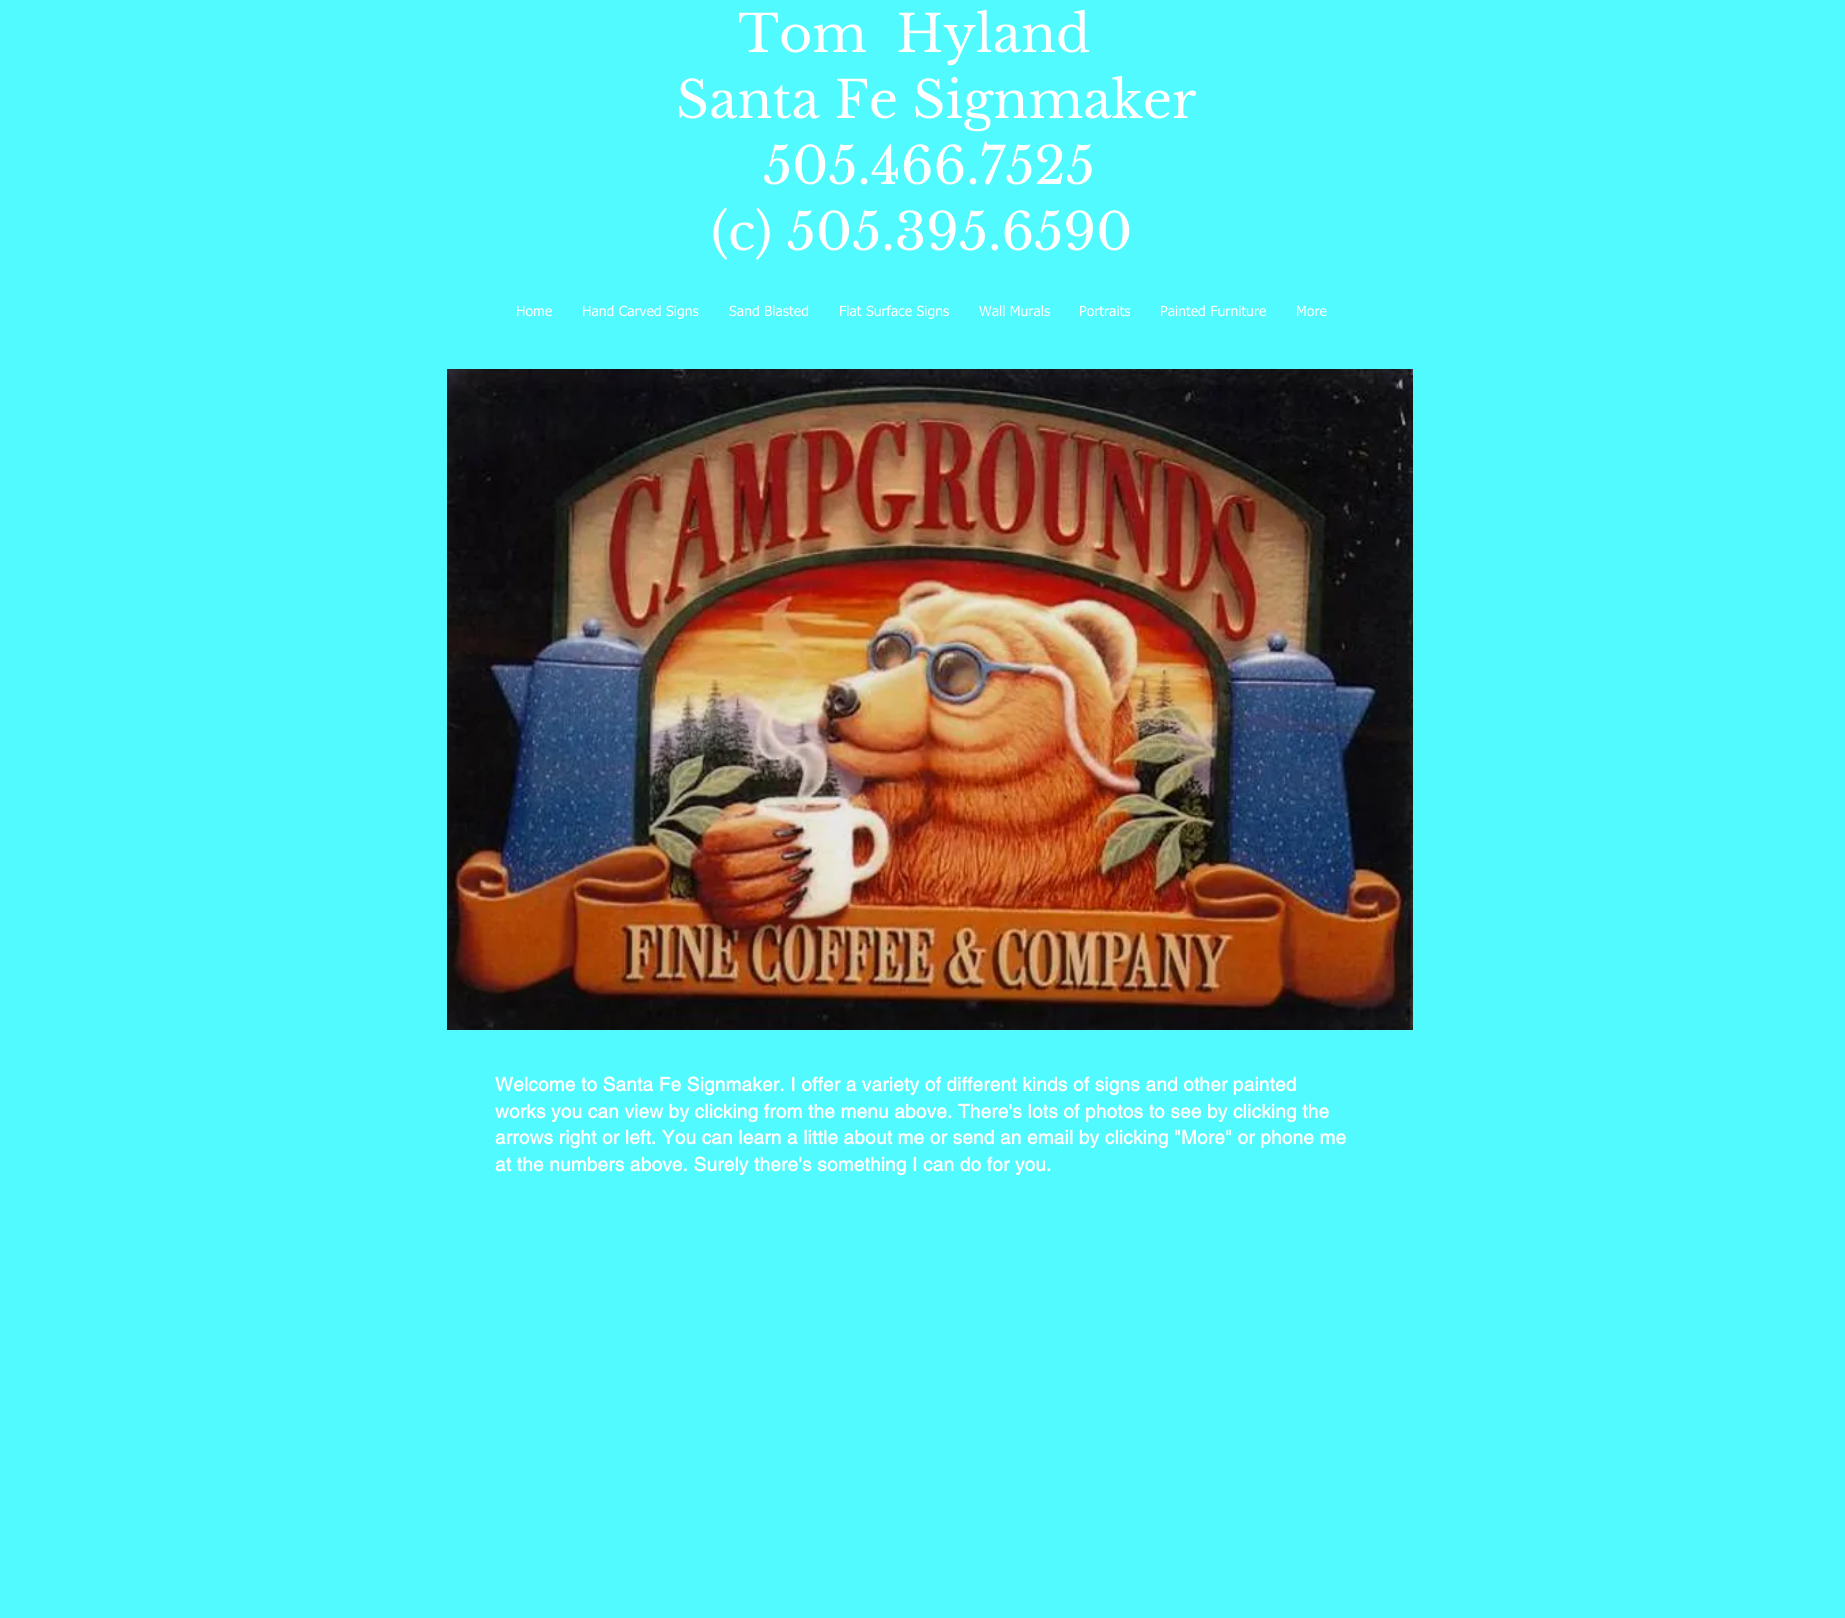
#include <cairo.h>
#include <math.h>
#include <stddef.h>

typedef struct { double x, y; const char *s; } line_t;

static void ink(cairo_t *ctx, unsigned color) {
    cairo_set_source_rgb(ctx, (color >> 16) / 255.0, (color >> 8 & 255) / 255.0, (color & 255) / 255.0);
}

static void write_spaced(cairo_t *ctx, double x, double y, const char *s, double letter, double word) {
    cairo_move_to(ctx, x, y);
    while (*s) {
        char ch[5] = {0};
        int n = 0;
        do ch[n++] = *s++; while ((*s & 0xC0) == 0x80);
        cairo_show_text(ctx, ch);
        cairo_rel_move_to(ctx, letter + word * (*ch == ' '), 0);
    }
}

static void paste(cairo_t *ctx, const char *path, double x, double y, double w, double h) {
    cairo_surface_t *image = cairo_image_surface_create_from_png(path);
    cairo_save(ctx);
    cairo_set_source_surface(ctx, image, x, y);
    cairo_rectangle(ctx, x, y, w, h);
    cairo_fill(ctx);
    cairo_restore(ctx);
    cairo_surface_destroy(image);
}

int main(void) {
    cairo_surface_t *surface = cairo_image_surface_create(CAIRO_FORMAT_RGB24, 1845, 1618);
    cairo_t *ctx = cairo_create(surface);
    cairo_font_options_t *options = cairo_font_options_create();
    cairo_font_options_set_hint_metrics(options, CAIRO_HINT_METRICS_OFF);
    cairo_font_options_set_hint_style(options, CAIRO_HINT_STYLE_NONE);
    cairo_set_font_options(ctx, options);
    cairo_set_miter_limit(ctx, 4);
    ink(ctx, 0x50FAFE);
    cairo_paint(ctx);
    cairo_select_font_face(ctx, "Libre Baskerville", CAIRO_FONT_SLANT_NORMAL, CAIRO_FONT_WEIGHT_NORMAL);
    cairo_set_font_size(ctx, 51);
    ink(ctx, 0xFFFFFF);
    {
        static const line_t items[] = {
            {738, 52, "Tom  Hyland"},
            {676, 118, "Santa Fe Signmaker"},
            {763, 184, "505.466.7525"},
            {711, 250, "(c) 505.395.6590"},
        };
        for (size_t i = 0; i < sizeof items / sizeof *items; i++) {
            cairo_move_to(ctx, items[i].x, items[i].y);
            cairo_show_text(ctx, items[i].s);
        }
    }
    cairo_select_font_face(ctx, "tahoma", CAIRO_FONT_SLANT_NORMAL, CAIRO_FONT_WEIGHT_NORMAL);
    cairo_set_font_size(ctx, 14);
    {
        static const line_t items[] = {
            {516, 316, "Home"},
            {582, 316, "Hand Carved Signs"},
            {729, 316, "Sand Blasted"},
            {839, 316, "Flat Surface Signs"},
            {979, 316, "Wall Murals"},
            {1079, 316, "Portraits"},
            {1160, 316, "Painted Furniture"},
            {1296, 316, "More"},
        };
        for (size_t i = 0; i < sizeof items / sizeof *items; i++) {
            cairo_move_to(ctx, items[i].x, items[i].y);
            cairo_show_text(ctx, items[i].s);
        }
    }
    paste(ctx, "media/1.png", 447, 369, 966, 661);
    cairo_select_font_face(ctx, "helvetica", CAIRO_FONT_SLANT_NORMAL, CAIRO_FONT_WEIGHT_BOLD);
    cairo_set_font_size(ctx, 19);
    {
        static const line_t items[] = {
            {495, 1091, "Welcome to Santa Fe Signmaker. I offer a variety of different kinds of signs and other painted"},
            {495, 1118, "works you can view by clicking from the menu above. There's lots of photos to see by clicking the"},
            {495, 1144, "arrows right or left. You can learn a little about me or send an email by clicking \"More\" or phone me"},
            {495, 1171, "at the numbers above. Surely there's something I can do for you."},
        };
        for (size_t i = 0; i < sizeof items / sizeof *items; i++) {
            write_spaced(ctx, items[i].x, items[i].y, items[i].s, 0.19, 0);
        }
    }
    cairo_surface_write_to_png(surface, "image.png");
    cairo_font_options_destroy(options);
    cairo_destroy(ctx);
    cairo_surface_destroy(surface);
    return 0;
}
